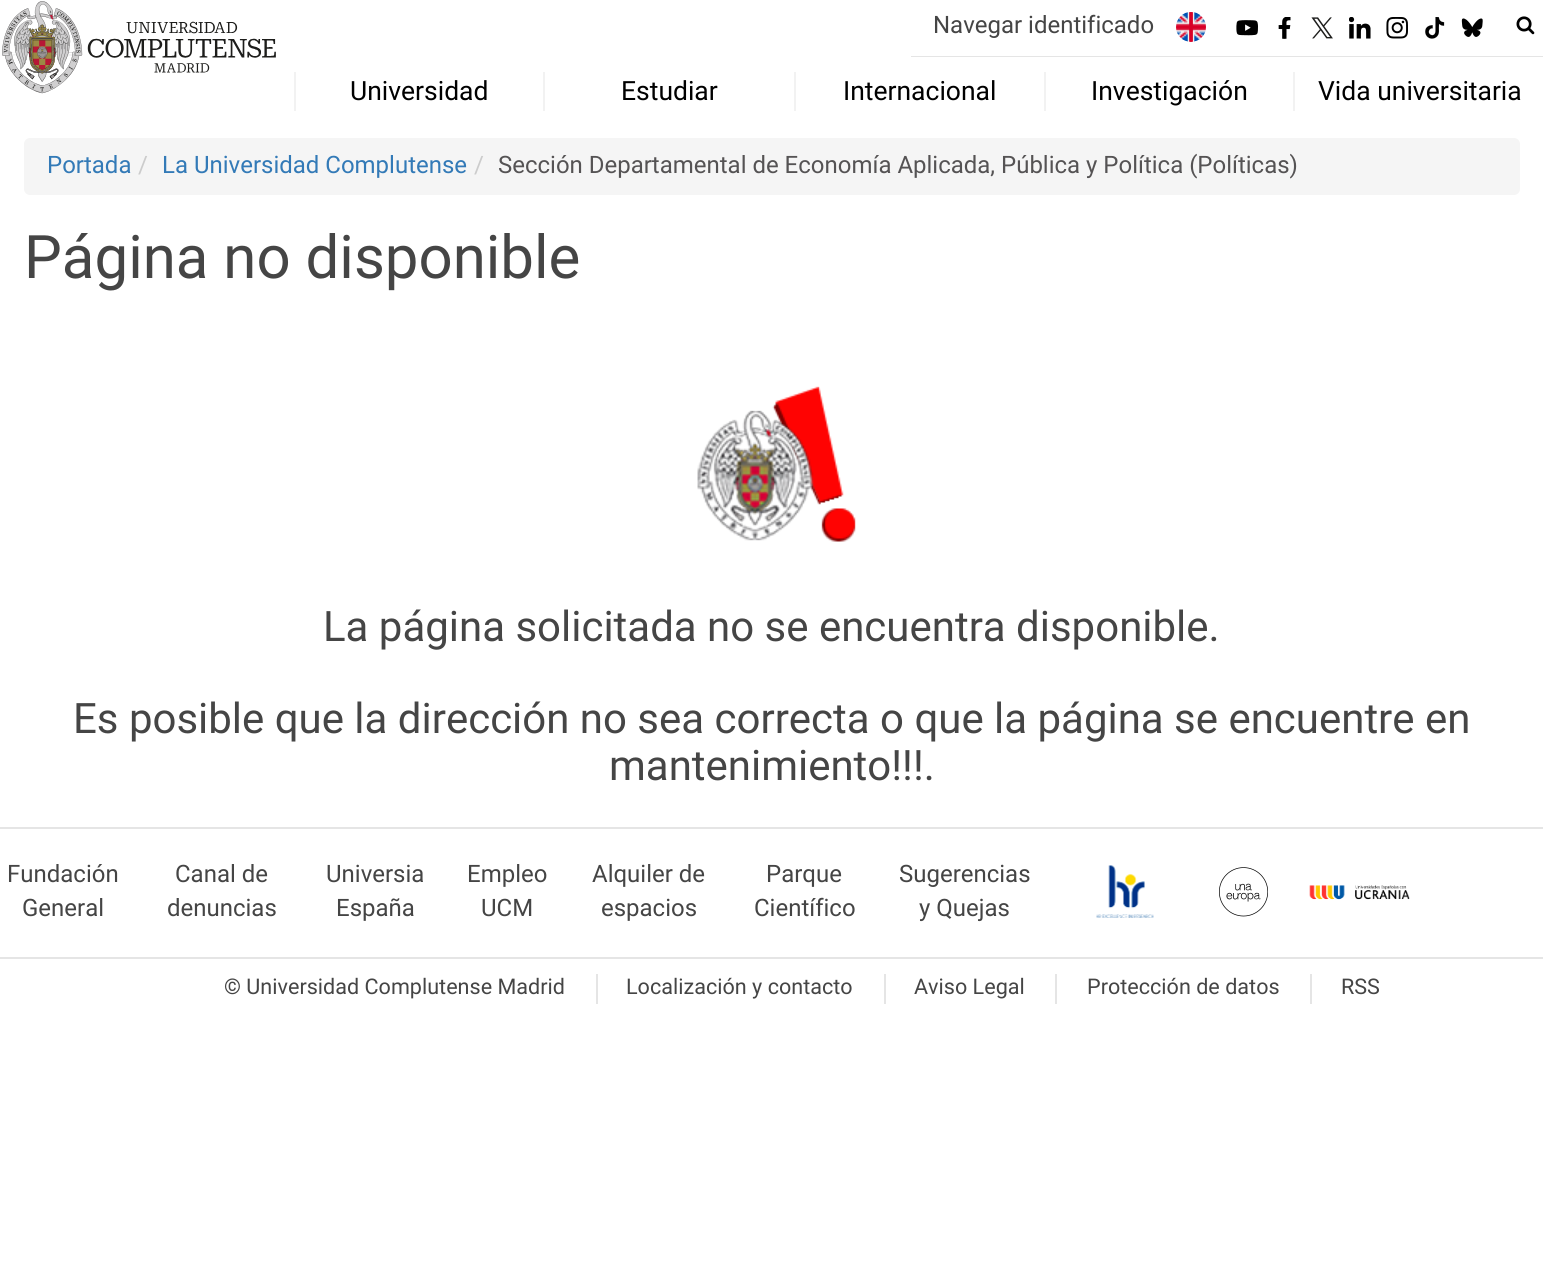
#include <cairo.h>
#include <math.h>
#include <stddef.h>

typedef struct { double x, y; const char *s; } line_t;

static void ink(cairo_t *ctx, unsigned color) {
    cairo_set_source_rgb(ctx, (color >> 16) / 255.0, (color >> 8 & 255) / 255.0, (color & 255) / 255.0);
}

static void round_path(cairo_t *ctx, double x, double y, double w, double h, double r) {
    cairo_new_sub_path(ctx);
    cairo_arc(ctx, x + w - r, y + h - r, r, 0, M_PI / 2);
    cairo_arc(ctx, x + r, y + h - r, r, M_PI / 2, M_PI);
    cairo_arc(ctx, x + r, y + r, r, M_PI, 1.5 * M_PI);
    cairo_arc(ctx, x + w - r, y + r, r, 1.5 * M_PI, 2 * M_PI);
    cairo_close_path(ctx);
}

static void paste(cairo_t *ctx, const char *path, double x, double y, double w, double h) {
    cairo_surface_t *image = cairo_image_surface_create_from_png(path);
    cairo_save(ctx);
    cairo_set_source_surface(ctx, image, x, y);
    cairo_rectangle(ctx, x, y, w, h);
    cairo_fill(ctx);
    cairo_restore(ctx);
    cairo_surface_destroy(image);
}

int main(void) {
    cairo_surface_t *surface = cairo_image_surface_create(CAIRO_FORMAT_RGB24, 1543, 1288);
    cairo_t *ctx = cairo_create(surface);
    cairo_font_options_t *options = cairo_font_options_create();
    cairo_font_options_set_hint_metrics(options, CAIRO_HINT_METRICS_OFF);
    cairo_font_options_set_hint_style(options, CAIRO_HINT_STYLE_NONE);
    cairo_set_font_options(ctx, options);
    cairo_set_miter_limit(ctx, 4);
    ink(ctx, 0xFFFFFF);
    cairo_paint(ctx);
    paste(ctx, "media/1.png", 2, 1, 274, 93);
    ink(ctx, 0xE5E5E5);
    cairo_rectangle(ctx, 911, 56, 632, 1);
    cairo_fill(ctx);
    cairo_select_font_face(ctx, "Roboto", CAIRO_FONT_SLANT_NORMAL, CAIRO_FONT_WEIGHT_NORMAL);
    cairo_set_font_size(ctx, 24);
    ink(ctx, 0x454545);
    cairo_move_to(ctx, 933, 33);
    cairo_show_text(ctx, "Navegar identificado");
    paste(ctx, "media/2.png", 1176, 12, 30, 30);
    paste(ctx, "media/3.png", 1236, 20, 22, 16);
    paste(ctx, "media/4.png", 1278, 17, 13, 22);
    paste(ctx, "media/5.png", 1311, 17, 22, 22);
    paste(ctx, "media/6.png", 1349, 17, 22, 22);
    paste(ctx, "media/7.png", 1386, 17, 22, 22);
    paste(ctx, "media/8.png", 1425, 17, 20, 22);
    paste(ctx, "media/9.png", 1461, 18, 22, 19);
    paste(ctx, "media/10.png", 1516, 16, 19, 19);
    ink(ctx, 0xF2F2F2);
    cairo_rectangle(ctx, 294, 72, 2, 39);
    cairo_fill(ctx);
    cairo_set_font_size(ctx, 26.5);
    ink(ctx, 0x000000);
    cairo_move_to(ctx, 350, 100);
    cairo_show_text(ctx, "Universidad");
    ink(ctx, 0xF2F2F2);
    cairo_rectangle(ctx, 543, 72, 2, 39);
    cairo_fill(ctx);
    ink(ctx, 0x000000);
    cairo_move_to(ctx, 621, 100);
    cairo_show_text(ctx, "Estudiar");
    ink(ctx, 0xF2F2F2);
    cairo_rectangle(ctx, 794, 72, 2, 39);
    cairo_fill(ctx);
    ink(ctx, 0x000000);
    cairo_move_to(ctx, 843, 100);
    cairo_show_text(ctx, "Internacional");
    ink(ctx, 0xF2F2F2);
    cairo_rectangle(ctx, 1044, 72, 2, 39);
    cairo_fill(ctx);
    ink(ctx, 0x000000);
    cairo_move_to(ctx, 1091, 100);
    cairo_show_text(ctx, "Investigación");
    ink(ctx, 0xF2F2F2);
    cairo_rectangle(ctx, 1293, 72, 2, 39);
    cairo_fill(ctx);
    ink(ctx, 0x000000);
    cairo_move_to(ctx, 1318, 100);
    cairo_show_text(ctx, "Vida universitaria");
    ink(ctx, 0xF5F5F5);
    round_path(ctx, 24, 138, 1496, 57, 6);
    cairo_fill(ctx);
    cairo_set_font_size(ctx, 24);
    ink(ctx, 0x337AB7);
    cairo_move_to(ctx, 47, 173);
    cairo_show_text(ctx, "Portada");
    ink(ctx, 0xCCCCCC);
    cairo_move_to(ctx, 138, 173);
    cairo_show_text(ctx, "/");
    ink(ctx, 0x337AB7);
    cairo_move_to(ctx, 162, 173);
    cairo_show_text(ctx, "La Universidad Complutense");
    ink(ctx, 0xCCCCCC);
    cairo_move_to(ctx, 474, 173);
    cairo_show_text(ctx, "/");
    ink(ctx, 0x555354);
    cairo_move_to(ctx, 498, 173);
    cairo_show_text(ctx, "Sección Departamental de Economía Aplicada, Pública y Política (Políticas)");
    cairo_set_font_size(ctx, 60);
    ink(ctx, 0x454545);
    cairo_move_to(ctx, 24, 278);
    cairo_show_text(ctx, "Página no disponible");
    paste(ctx, "media/11.png", 697, 386, 159, 156);
    cairo_set_font_size(ctx, 42);
    {
        static const line_t items[] = {
            {323, 641, "La página solicitada no se encuentra disponible."},
            {73, 733, "Es posible que la dirección no sea correcta o que la página se encuentre en"},
            {609, 780, "mantenimiento!!!."},
        };
        for (size_t i = 0; i < sizeof items / sizeof *items; i++) {
            cairo_move_to(ctx, items[i].x, items[i].y);
            cairo_show_text(ctx, items[i].s);
        }
    }
    ink(ctx, 0xE5E5E5);
    cairo_rectangle(ctx, 0, 827, 1543, 2);
    cairo_fill(ctx);
    cairo_set_font_size(ctx, 24);
    ink(ctx, 0x454545);
    {
        static const line_t items[] = {
            {7, 882, "Fundación"},
            {22, 916, "General"},
            {175, 882, "Canal de"},
            {167, 916, "denuncias"},
            {326, 882, "Universia"},
            {336, 916, "España"},
            {467, 882, "Empleo"},
            {481, 916, "UCM"},
            {592, 882, "Alquiler de"},
            {601, 916, "espacios"},
            {766, 882, "Parque"},
            {754, 916, "Científico"},
            {899, 882, "Sugerencias"},
            {919, 916, "y Quejas"},
        };
        for (size_t i = 0; i < sizeof items / sizeof *items; i++) {
            cairo_move_to(ctx, items[i].x, items[i].y);
            cairo_show_text(ctx, items[i].s);
        }
    }
    paste(ctx, "media/12.png", 1096, 865, 58, 53);
    paste(ctx, "media/13.png", 1219, 867, 49, 50);
    paste(ctx, "media/14.png", 1309, 885, 101, 15);
    ink(ctx, 0xE5E5E5);
    cairo_rectangle(ctx, 0, 957, 1543, 2);
    cairo_fill(ctx);
    cairo_rectangle(ctx, 596, 974, 2, 30);
    cairo_fill(ctx);
    cairo_set_font_size(ctx, 21.6);
    ink(ctx, 0x454545);
    cairo_move_to(ctx, 224, 994);
    cairo_show_text(ctx, "© Universidad Complutense Madrid");
    ink(ctx, 0xE5E5E5);
    cairo_rectangle(ctx, 884, 974, 2, 30);
    cairo_fill(ctx);
    ink(ctx, 0x454545);
    cairo_move_to(ctx, 626, 994);
    cairo_show_text(ctx, "Localización y contacto");
    ink(ctx, 0xE5E5E5);
    cairo_rectangle(ctx, 1055, 974, 2, 30);
    cairo_fill(ctx);
    ink(ctx, 0x454545);
    cairo_move_to(ctx, 914, 994);
    cairo_show_text(ctx, "Aviso Legal");
    ink(ctx, 0xE5E5E5);
    cairo_rectangle(ctx, 1310, 974, 2, 30);
    cairo_fill(ctx);
    ink(ctx, 0x454545);
    cairo_move_to(ctx, 1087, 994);
    cairo_show_text(ctx, "Protección de datos");
    cairo_move_to(ctx, 1341, 994);
    cairo_show_text(ctx, "RSS");
    cairo_surface_write_to_png(surface, "image.png");
    cairo_font_options_destroy(options);
    cairo_destroy(ctx);
    cairo_surface_destroy(surface);
    return 0;
}
